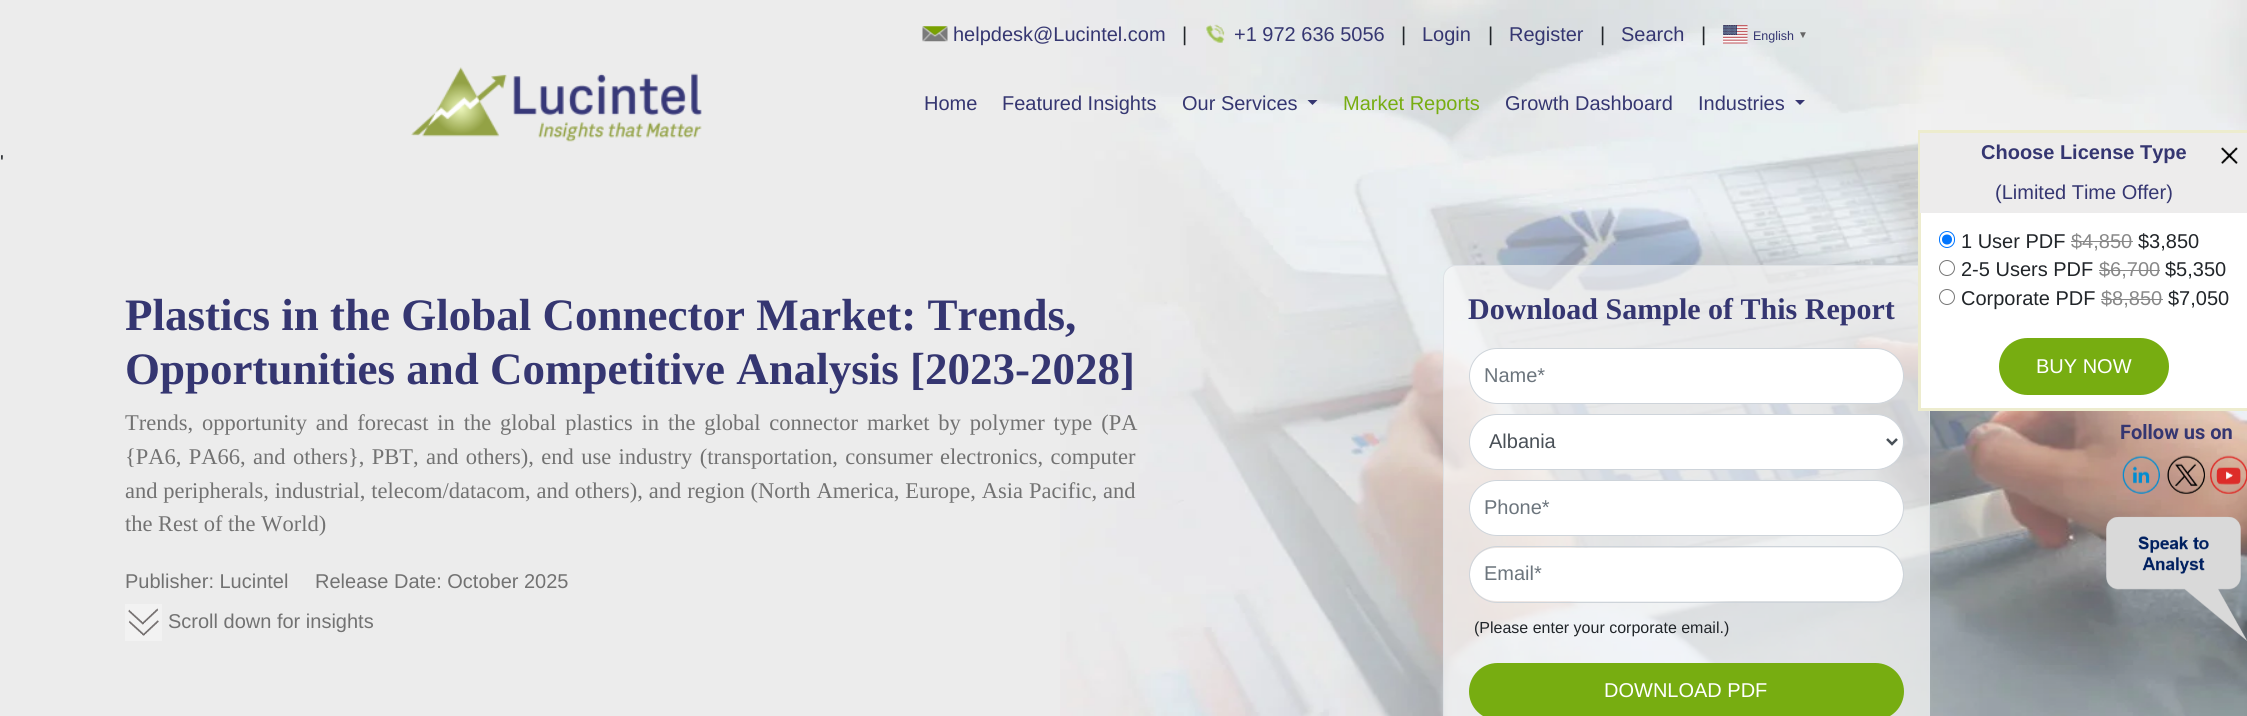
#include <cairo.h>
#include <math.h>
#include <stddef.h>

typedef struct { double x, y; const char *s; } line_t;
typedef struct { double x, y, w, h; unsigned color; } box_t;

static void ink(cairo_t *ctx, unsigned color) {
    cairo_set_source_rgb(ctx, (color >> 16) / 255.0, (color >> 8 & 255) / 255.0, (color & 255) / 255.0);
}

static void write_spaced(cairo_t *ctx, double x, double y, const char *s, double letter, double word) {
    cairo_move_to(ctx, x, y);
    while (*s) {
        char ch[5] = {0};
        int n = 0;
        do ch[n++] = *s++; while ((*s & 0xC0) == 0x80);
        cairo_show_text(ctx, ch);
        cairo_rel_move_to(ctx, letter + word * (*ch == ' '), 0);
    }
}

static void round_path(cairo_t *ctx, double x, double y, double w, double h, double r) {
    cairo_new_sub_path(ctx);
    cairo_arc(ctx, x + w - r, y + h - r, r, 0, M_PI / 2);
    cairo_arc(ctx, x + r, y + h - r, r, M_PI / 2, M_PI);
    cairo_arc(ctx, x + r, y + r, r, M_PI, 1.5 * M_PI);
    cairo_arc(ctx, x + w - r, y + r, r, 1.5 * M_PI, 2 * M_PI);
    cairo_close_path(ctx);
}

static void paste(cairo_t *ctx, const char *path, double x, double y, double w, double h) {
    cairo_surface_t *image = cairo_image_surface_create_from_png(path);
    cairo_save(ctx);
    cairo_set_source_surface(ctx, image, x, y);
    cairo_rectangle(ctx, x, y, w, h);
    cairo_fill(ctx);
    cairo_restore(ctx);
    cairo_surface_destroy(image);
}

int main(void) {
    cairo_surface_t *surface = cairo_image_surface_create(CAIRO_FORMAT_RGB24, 2247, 716);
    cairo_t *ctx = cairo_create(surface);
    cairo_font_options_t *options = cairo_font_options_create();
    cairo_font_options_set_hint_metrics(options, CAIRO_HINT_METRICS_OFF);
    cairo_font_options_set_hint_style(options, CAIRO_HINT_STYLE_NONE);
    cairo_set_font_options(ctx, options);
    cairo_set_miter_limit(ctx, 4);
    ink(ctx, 0xECECEC);
    cairo_paint(ctx);
    paste(ctx, "media/1.png", 922, 26, 26, 16);
    paste(ctx, "media/6.png", 1060, 0, 1187, 716);
    cairo_select_font_face(ctx, "Liberation Sans", CAIRO_FONT_SLANT_NORMAL, CAIRO_FONT_WEIGHT_NORMAL);
    cairo_set_font_size(ctx, 20);
    ink(ctx, 0x353671);
    cairo_move_to(ctx, 953, 41);
    cairo_show_text(ctx, "helpdesk@Lucintel.com");
    ink(ctx, 0x212529);
    cairo_move_to(ctx, 1182, 41);
    cairo_show_text(ctx, "|");
    paste(ctx, "media/2.png", 1206, 24, 19, 19);
    ink(ctx, 0x353671);
    cairo_move_to(ctx, 1234, 41);
    cairo_show_text(ctx, "+1 972 636 5056");
    ink(ctx, 0x212529);
    cairo_move_to(ctx, 1401, 41);
    cairo_show_text(ctx, "|");
    ink(ctx, 0x353671);
    cairo_move_to(ctx, 1422, 41);
    cairo_show_text(ctx, "Login");
    ink(ctx, 0x212529);
    cairo_move_to(ctx, 1488, 41);
    cairo_show_text(ctx, "|");
    ink(ctx, 0x353671);
    cairo_move_to(ctx, 1509, 41);
    cairo_show_text(ctx, "Register");
    ink(ctx, 0x212529);
    cairo_move_to(ctx, 1600, 41);
    cairo_show_text(ctx, "|");
    ink(ctx, 0x353671);
    cairo_move_to(ctx, 1621, 41);
    cairo_show_text(ctx, "Search");
    ink(ctx, 0x212529);
    cairo_move_to(ctx, 1701, 41);
    cairo_show_text(ctx, "|");
    paste(ctx, "media/3.png", 1723, 25, 25, 19);
    cairo_set_font_size(ctx, 12.5);
    ink(ctx, 0x353671);
    cairo_move_to(ctx, 1753, 40);
    cairo_show_text(ctx, "English");
    cairo_select_font_face(ctx, "Liberation Sans", CAIRO_FONT_SLANT_NORMAL, CAIRO_FONT_WEIGHT_BOLD);
    cairo_set_font_size(ctx, 10);
    ink(ctx, 0x666666);
    cairo_move_to(ctx, 1798, 38);
    cairo_show_text(ctx, "▼");
    paste(ctx, "media/4.png", 411, 67, 291, 75);
    cairo_select_font_face(ctx, "Liberation Sans", CAIRO_FONT_SLANT_NORMAL, CAIRO_FONT_WEIGHT_NORMAL);
    cairo_set_font_size(ctx, 20);
    ink(ctx, 0x353671);
    {
        static const line_t items[] = {
            {924, 110, "Home"},
            {1002, 110, "Featured Insights"},
            {1182, 110, "Our Services"},
        };
        for (size_t i = 0; i < sizeof items / sizeof *items; i++) {
            cairo_move_to(ctx, items[i].x, items[i].y);
            cairo_show_text(ctx, items[i].s);
        }
    }
    cairo_new_path(ctx);
    cairo_move_to(ctx, 1307.5, 100);
    cairo_line_to(ctx, 1317.5, 100);
    cairo_line_to(ctx, 1312.5, 105);
    cairo_close_path(ctx);
    cairo_fill(ctx);
    ink(ctx, 0x77AD11);
    cairo_move_to(ctx, 1343, 110);
    cairo_show_text(ctx, "Market Reports");
    ink(ctx, 0x353671);
    cairo_move_to(ctx, 1505, 110);
    cairo_show_text(ctx, "Growth Dashboard");
    cairo_move_to(ctx, 1698, 110);
    cairo_show_text(ctx, "Industries");
    cairo_new_path(ctx);
    cairo_move_to(ctx, 1795, 100);
    cairo_line_to(ctx, 1805, 100);
    cairo_line_to(ctx, 1800, 105);
    cairo_close_path(ctx);
    cairo_fill(ctx);
    ink(ctx, 0x212529);
    cairo_move_to(ctx, 0, 169);
    cairo_show_text(ctx, "'");
    cairo_set_source_rgba(ctx, 0.973, 0.973, 0.973, 0.7);
    round_path(ctx, 1443.5, 265.5, 486, 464, 12.5);
    cairo_fill_preserve(ctx);
    ink(ctx, 0xDEE2E6);
    cairo_set_line_width(ctx, 1);
    cairo_stroke(ctx);
    {
        static const box_t items[] = {
            {1921, 213, 326, 195, 0xFFFFFF},
            {1918, 130, 329, 3, 0xEDECCE},
            {1918, 408, 329, 3, 0xEDECCE},
            {1918, 130, 3, 280, 0xEDECCE},
            {1920, 133, 327, 80, 0xEDECEC},
        };
        for (size_t i = 0; i < sizeof items / sizeof *items; i++) {
            ink(ctx, items[i].color);
            cairo_rectangle(ctx, items[i].x, items[i].y, items[i].w, items[i].h);
            cairo_fill(ctx);
        }
    }
    cairo_select_font_face(ctx, "Liberation Sans", CAIRO_FONT_SLANT_NORMAL, CAIRO_FONT_WEIGHT_BOLD);
    ink(ctx, 0x353671);
    cairo_move_to(ctx, 1981, 159);
    cairo_show_text(ctx, "Choose License Type");
    cairo_select_font_face(ctx, "Liberation Sans", CAIRO_FONT_SLANT_NORMAL, CAIRO_FONT_WEIGHT_NORMAL);
    cairo_move_to(ctx, 1995, 199);
    cairo_show_text(ctx, "(Limited Time Offer)");
    paste(ctx, "media/5.png", 2221, 147, 17, 17);
    round_path(ctx, 1939.5, 231.5, 15, 16, 7.5);
    ink(ctx, 0x0075FF);
    cairo_stroke(ctx);
    cairo_arc(ctx, 1947, 239.5, 5, 0, 2 * M_PI);
    cairo_fill(ctx);
    ink(ctx, 0x212529);
    cairo_move_to(ctx, 1961, 248);
    cairo_show_text(ctx, "1 User PDF");
    ink(ctx, 0x888888);
    cairo_move_to(ctx, 2071, 248);
    cairo_show_text(ctx, "$4,850");
    cairo_rectangle(ctx, 2071, 241, 62, 1);
    cairo_fill(ctx);
    ink(ctx, 0x212529);
    cairo_move_to(ctx, 2138, 248);
    cairo_show_text(ctx, "$3,850");
    cairo_new_path(ctx);
    cairo_arc(ctx, 1947, 268, 7.5, 0, 2 * M_PI);
    ink(ctx, 0x767676);
    cairo_stroke(ctx);
    ink(ctx, 0x212529);
    cairo_move_to(ctx, 1961, 276);
    cairo_show_text(ctx, "2-5 Users PDF");
    ink(ctx, 0x888888);
    cairo_move_to(ctx, 2099, 276);
    cairo_show_text(ctx, "$6,700");
    cairo_rectangle(ctx, 2099, 270, 61, 1);
    cairo_fill(ctx);
    ink(ctx, 0x212529);
    cairo_move_to(ctx, 2165, 276);
    cairo_show_text(ctx, "$5,350");
    cairo_new_path(ctx);
    cairo_arc(ctx, 1947, 297, 7.5, 0, 2 * M_PI);
    ink(ctx, 0x767676);
    cairo_stroke(ctx);
    ink(ctx, 0x212529);
    cairo_move_to(ctx, 1961, 305);
    cairo_show_text(ctx, "Corporate PDF");
    ink(ctx, 0x888888);
    cairo_move_to(ctx, 2101, 305);
    cairo_show_text(ctx, "$8,850");
    cairo_rectangle(ctx, 2101, 299, 62, 1);
    cairo_fill(ctx);
    ink(ctx, 0x212529);
    cairo_move_to(ctx, 2168, 305);
    cairo_show_text(ctx, "$7,050");
    ink(ctx, 0x77AD11);
    round_path(ctx, 1999, 338, 170, 57, 28.5);
    cairo_fill(ctx);
    ink(ctx, 0xFFFFFF);
    cairo_move_to(ctx, 2036, 373);
    cairo_show_text(ctx, "BUY NOW");
    cairo_select_font_face(ctx, "Liberation Serif", CAIRO_FONT_SLANT_NORMAL, CAIRO_FONT_WEIGHT_BOLD);
    cairo_set_font_size(ctx, 45);
    ink(ctx, 0x353671);
    cairo_move_to(ctx, 125, 330);
    cairo_show_text(ctx, "Plastics in the Global Connector Market: Trends,");
    cairo_move_to(ctx, 125, 384);
    cairo_show_text(ctx, "Opportunities and Competitive Analysis [2023-2028]");
    cairo_select_font_face(ctx, "Liberation Serif", CAIRO_FONT_SLANT_NORMAL, CAIRO_FONT_WEIGHT_NORMAL);
    cairo_set_font_size(ctx, 22.5);
    ink(ctx, 0x727272);
    write_spaced(ctx, 125, 430, "Trends, opportunity and forecast in the global plastics in the global connector market by polymer type (PA", 0, 3.25);
    write_spaced(ctx, 125, 464, "{PA6, PA66, and others}, PBT, and others), end use industry (transportation, consumer electronics, computer", 0, 1.75);
    write_spaced(ctx, 125, 498, "and peripherals, industrial, telecom/datacom, and others), and region (North America, Europe, Asia Pacific, and", 0, 0.25);
    cairo_move_to(ctx, 125, 531);
    cairo_show_text(ctx, "the Rest of the World)");
    cairo_select_font_face(ctx, "Liberation Sans", CAIRO_FONT_SLANT_NORMAL, CAIRO_FONT_WEIGHT_NORMAL);
    cairo_set_font_size(ctx, 20);
    cairo_move_to(ctx, 125, 588);
    cairo_show_text(ctx, "Publisher: Lucintel");
    cairo_move_to(ctx, 315, 588);
    cairo_show_text(ctx, "Release Date: October 2025");
    paste(ctx, "media/7.png", 125, 604, 37, 37);
    cairo_move_to(ctx, 168, 628);
    cairo_show_text(ctx, "Scroll down for insights");
    cairo_select_font_face(ctx, "Liberation Serif", CAIRO_FONT_SLANT_NORMAL, CAIRO_FONT_WEIGHT_BOLD);
    cairo_set_font_size(ctx, 30);
    ink(ctx, 0x353671);
    cairo_move_to(ctx, 1468, 319);
    cairo_show_text(ctx, "Download Sample of This Report");
    ink(ctx, 0xFFFFFF);
    round_path(ctx, 1469.5, 348.5, 434, 55, 27.5);
    cairo_fill_preserve(ctx);
    ink(ctx, 0xCED4DA);
    cairo_stroke(ctx);
    cairo_select_font_face(ctx, "Liberation Sans", CAIRO_FONT_SLANT_NORMAL, CAIRO_FONT_WEIGHT_NORMAL);
    cairo_set_font_size(ctx, 20);
    ink(ctx, 0x6C757D);
    cairo_move_to(ctx, 1484, 382);
    cairo_show_text(ctx, "Name*");
    ink(ctx, 0xFFFFFF);
    round_path(ctx, 1469.5, 414.5, 434, 55, 27.5);
    cairo_fill_preserve(ctx);
    ink(ctx, 0xCED4DA);
    cairo_stroke(ctx);
    cairo_new_path(ctx);
    cairo_move_to(ctx, 1887, 439);
    cairo_line_to(ctx, 1892, 444);
    cairo_line_to(ctx, 1897, 439);
    ink(ctx, 0x495057);
    cairo_set_line_width(ctx, 2.5);
    cairo_stroke(ctx);
    cairo_move_to(ctx, 1489, 448);
    cairo_show_text(ctx, "Albania");
    ink(ctx, 0xFFFFFF);
    round_path(ctx, 1469.5, 480.5, 434, 55, 27.5);
    cairo_fill_preserve(ctx);
    ink(ctx, 0xCED4DA);
    cairo_set_line_width(ctx, 1);
    cairo_stroke(ctx);
    ink(ctx, 0x6C757D);
    cairo_move_to(ctx, 1484, 514);
    cairo_show_text(ctx, "Phone*");
    ink(ctx, 0xFFFFFF);
    round_path(ctx, 1470, 548, 433, 53, 26.5);
    cairo_fill(ctx);
    round_path(ctx, 1469.5, 546.5, 434, 56, 28);
    ink(ctx, 0xCED4DA);
    cairo_stroke(ctx);
    ink(ctx, 0x6C757D);
    cairo_move_to(ctx, 1484, 580);
    cairo_show_text(ctx, "Email*");
    cairo_set_font_size(ctx, 16);
    ink(ctx, 0x212529);
    cairo_move_to(ctx, 1474, 633);
    cairo_show_text(ctx, "(Please enter your corporate email.)");
    ink(ctx, 0x77AD11);
    round_path(ctx, 1469, 663, 435, 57, 28.5);
    cairo_fill(ctx);
    cairo_set_font_size(ctx, 20);
    ink(ctx, 0xFFFFFF);
    cairo_move_to(ctx, 1604, 697);
    cairo_show_text(ctx, "DOWNLOAD PDF");
    cairo_select_font_face(ctx, "Roboto", CAIRO_FONT_SLANT_NORMAL, CAIRO_FONT_WEIGHT_BOLD);
    ink(ctx, 0x353671);
    cairo_move_to(ctx, 2120, 439);
    cairo_show_text(ctx, "Follow us on");
    paste(ctx, "media/8.png", 2122, 455, 38, 39);
    paste(ctx, "media/9.png", 2167, 455, 38, 39);
    paste(ctx, "media/10.png", 2210, 455, 37, 39);
    paste(ctx, "media/11.png", 2106, 516, 141, 125);
    cairo_surface_write_to_png(surface, "image.png");
    cairo_font_options_destroy(options);
    cairo_destroy(ctx);
    cairo_surface_destroy(surface);
    return 0;
}
